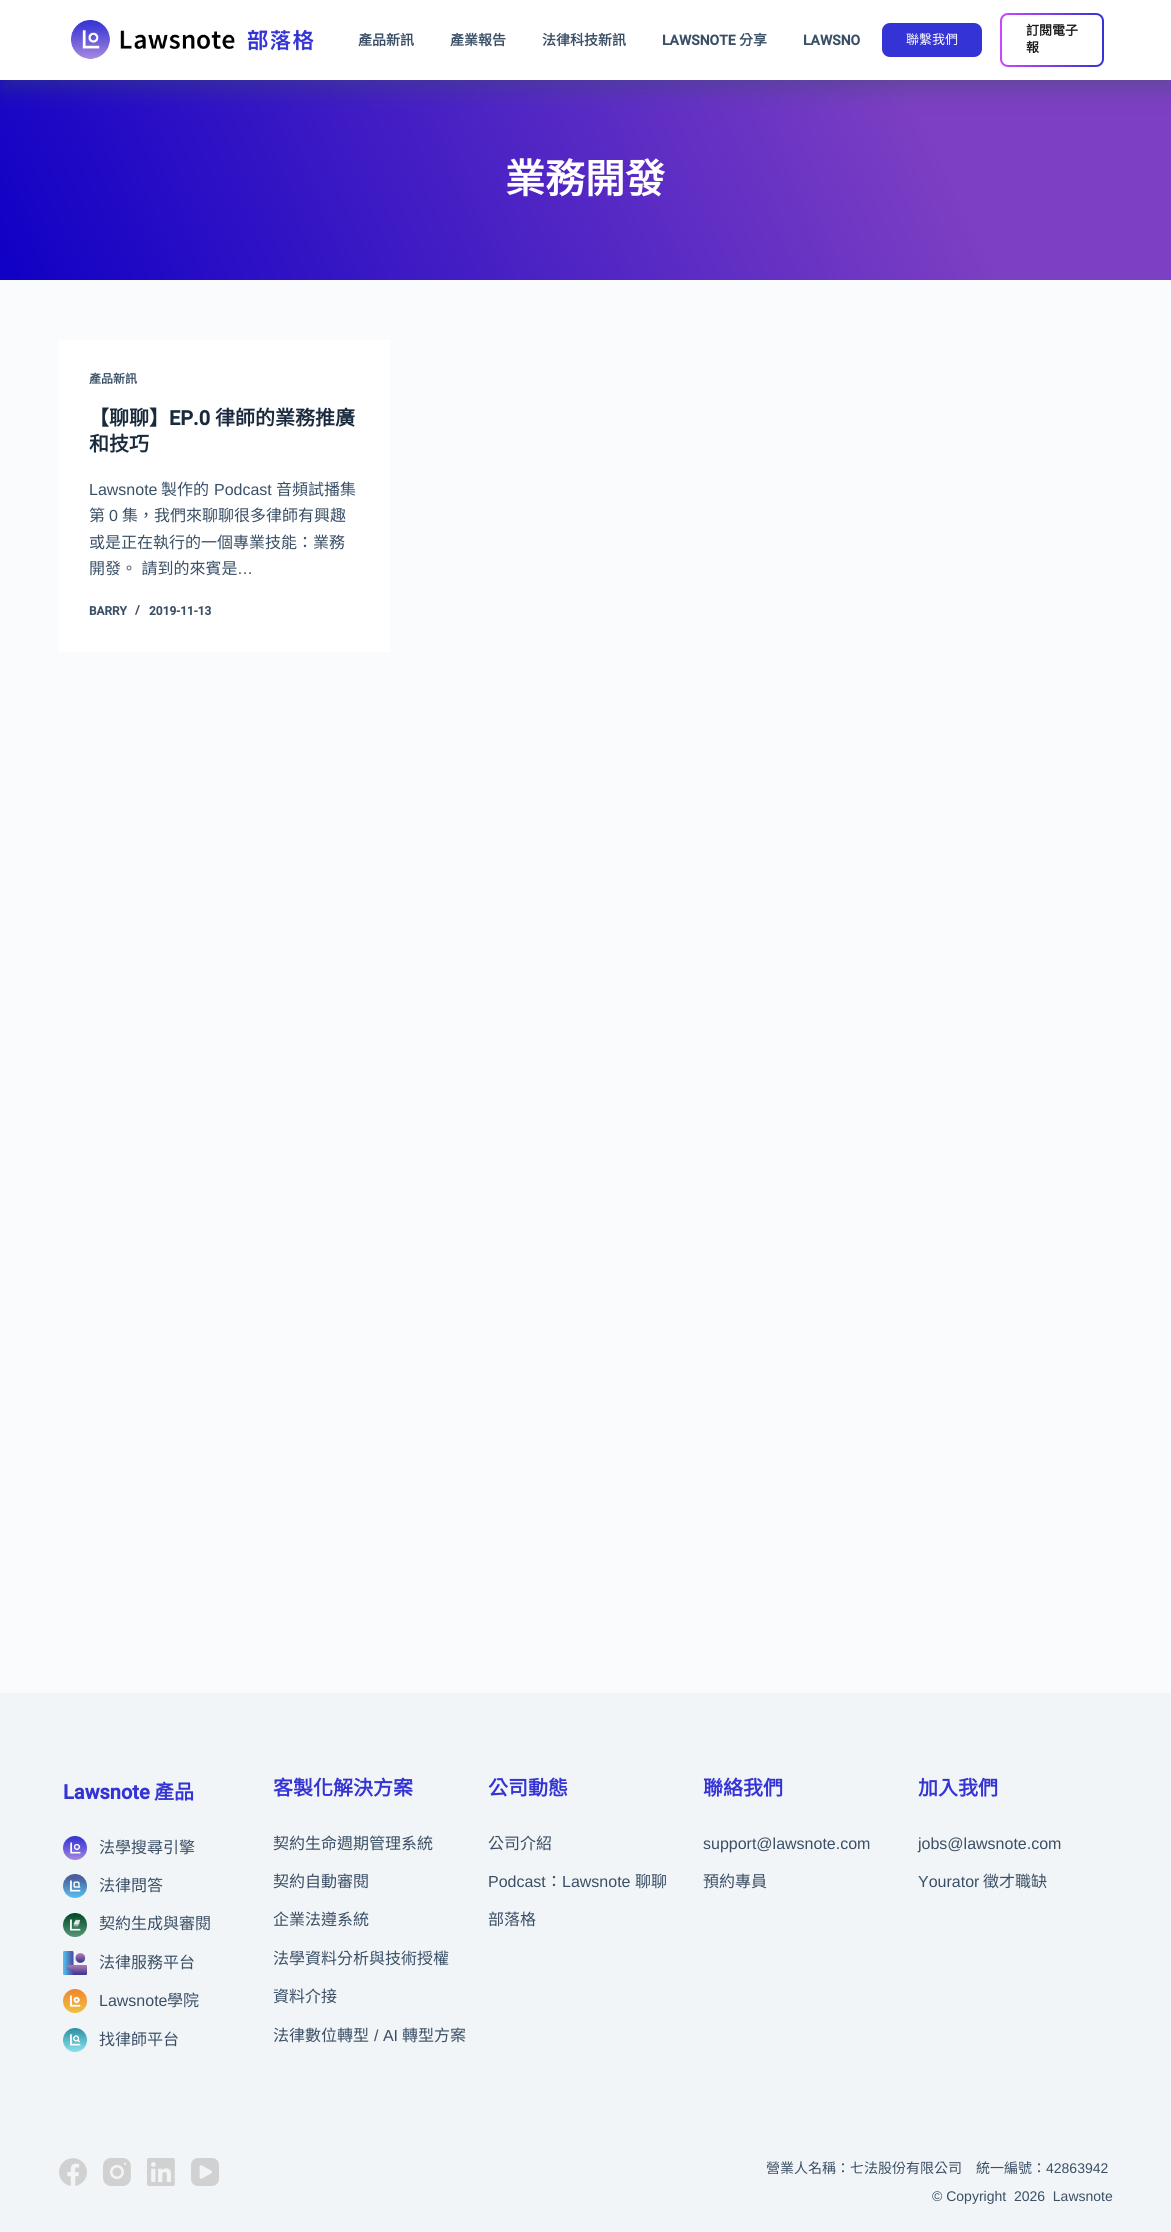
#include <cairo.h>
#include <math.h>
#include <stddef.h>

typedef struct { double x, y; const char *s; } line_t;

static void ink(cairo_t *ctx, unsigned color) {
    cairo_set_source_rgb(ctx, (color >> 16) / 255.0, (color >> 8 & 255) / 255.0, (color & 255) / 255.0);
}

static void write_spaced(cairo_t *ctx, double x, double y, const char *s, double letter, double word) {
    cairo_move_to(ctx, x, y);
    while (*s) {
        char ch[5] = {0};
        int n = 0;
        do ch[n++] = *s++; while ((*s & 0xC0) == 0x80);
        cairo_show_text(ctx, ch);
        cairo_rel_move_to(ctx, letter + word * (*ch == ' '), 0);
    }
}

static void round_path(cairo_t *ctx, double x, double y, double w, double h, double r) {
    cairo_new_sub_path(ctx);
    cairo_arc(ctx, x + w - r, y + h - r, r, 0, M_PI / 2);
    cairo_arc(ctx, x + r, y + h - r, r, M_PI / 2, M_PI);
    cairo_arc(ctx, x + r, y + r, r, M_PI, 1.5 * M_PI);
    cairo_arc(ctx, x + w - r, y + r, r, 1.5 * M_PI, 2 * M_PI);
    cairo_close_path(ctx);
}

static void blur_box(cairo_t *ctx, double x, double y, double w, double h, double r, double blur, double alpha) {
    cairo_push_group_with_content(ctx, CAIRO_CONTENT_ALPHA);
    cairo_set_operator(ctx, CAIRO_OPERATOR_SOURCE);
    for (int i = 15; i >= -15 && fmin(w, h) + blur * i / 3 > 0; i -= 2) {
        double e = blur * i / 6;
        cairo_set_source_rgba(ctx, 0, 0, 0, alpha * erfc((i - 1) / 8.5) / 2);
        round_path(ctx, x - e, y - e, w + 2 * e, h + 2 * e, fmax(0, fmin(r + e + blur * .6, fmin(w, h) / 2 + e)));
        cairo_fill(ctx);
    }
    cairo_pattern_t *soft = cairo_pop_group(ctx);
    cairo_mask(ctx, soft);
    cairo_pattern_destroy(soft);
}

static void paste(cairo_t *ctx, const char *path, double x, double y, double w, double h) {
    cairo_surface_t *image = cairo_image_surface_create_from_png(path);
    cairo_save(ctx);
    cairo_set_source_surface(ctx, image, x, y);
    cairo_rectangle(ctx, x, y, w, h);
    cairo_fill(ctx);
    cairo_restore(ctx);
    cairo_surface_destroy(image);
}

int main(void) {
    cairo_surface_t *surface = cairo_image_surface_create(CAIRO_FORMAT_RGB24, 1171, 2232);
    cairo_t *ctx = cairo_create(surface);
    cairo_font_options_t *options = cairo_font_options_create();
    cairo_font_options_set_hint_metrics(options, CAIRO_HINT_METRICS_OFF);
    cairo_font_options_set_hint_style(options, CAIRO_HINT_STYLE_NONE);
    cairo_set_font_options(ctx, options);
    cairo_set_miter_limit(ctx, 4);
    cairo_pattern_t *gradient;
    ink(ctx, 0xFAFBFC);
    cairo_paint(ctx);
    gradient = cairo_pattern_create_linear(66, 422, 1105, -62);
    cairo_pattern_add_color_stop_rgba(gradient, 0, 0.063, 0, 0.773, 1);
    cairo_pattern_add_color_stop_rgba(gradient, 0.79, 0.49, 0.247, 0.765, 1);
    cairo_set_source(ctx, gradient);
    cairo_pattern_destroy(gradient);
    cairo_rectangle(ctx, 0, 80, 1171, 200);
    cairo_fill(ctx);
    ink(ctx, 0x3A4F66);
    blur_box(ctx, 1, 10, 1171, 80, 0, 10, 0.4);
    ink(ctx, 0xFFFFFF);
    cairo_rectangle(ctx, 0, 0, 1171, 80);
    cairo_fill(ctx);
    paste(ctx, "media/1.png", 71, 20, 243, 39);
    cairo_select_font_face(ctx, "Noto Sans CJK TC", CAIRO_FONT_SLANT_NORMAL, CAIRO_FONT_WEIGHT_BOLD);
    cairo_set_font_size(ctx, 14);
    ink(ctx, 0x3A4F66);
    {
        static const line_t items[] = {
            {358, 45, "產品新訊"},
            {450, 45, "產業報告"},
            {542, 45, "法律科技新訊"},
        };
        for (size_t i = 0; i < sizeof items / sizeof *items; i++) {
            cairo_move_to(ctx, items[i].x, items[i].y);
            cairo_show_text(ctx, items[i].s);
        }
    }
    cairo_select_font_face(ctx, "Roboto", CAIRO_FONT_SLANT_NORMAL, CAIRO_FONT_WEIGHT_BOLD);
    cairo_move_to(ctx, 662, 45);
    cairo_show_text(ctx, "LAWSNOTE");
    cairo_select_font_face(ctx, "Noto Sans CJK TC", CAIRO_FONT_SLANT_NORMAL, CAIRO_FONT_WEIGHT_BOLD);
    cairo_move_to(ctx, 739, 45);
    cairo_show_text(ctx, "分享");
    cairo_select_font_face(ctx, "Roboto", CAIRO_FONT_SLANT_NORMAL, CAIRO_FONT_WEIGHT_BOLD);
    cairo_move_to(ctx, 803, 45);
    cairo_show_text(ctx, "LAWSNO");
    ink(ctx, 0x3433D5);
    round_path(ctx, 882, 23, 100, 34, 8);
    cairo_fill(ctx);
    cairo_select_font_face(ctx, "Noto Sans CJK TC", CAIRO_FONT_SLANT_NORMAL, CAIRO_FONT_WEIGHT_NORMAL);
    cairo_set_font_size(ctx, 13);
    ink(ctx, 0xFFFFFF);
    cairo_move_to(ctx, 906, 44);
    cairo_show_text(ctx, "聯繫我們");
    gradient = cairo_pattern_create_linear(1000, 40, 1104, 40);
    cairo_pattern_add_color_stop_rgba(gradient, 0, 0.792, 0.275, 0.996, 1);
    cairo_pattern_add_color_stop_rgba(gradient, 1, 0.204, 0.2, 0.835, 1);
    cairo_set_source(ctx, gradient);
    cairo_pattern_destroy(gradient);
    round_path(ctx, 1000, 13, 104, 54, 8);
    cairo_fill(ctx);
    ink(ctx, 0xFFFFFF);
    round_path(ctx, 1002, 15, 100, 50, 6);
    cairo_fill(ctx);
    cairo_select_font_face(ctx, "Noto Sans CJK TC", CAIRO_FONT_SLANT_NORMAL, CAIRO_FONT_WEIGHT_BOLD);
    ink(ctx, 0x1C1C1C);
    cairo_move_to(ctx, 1026, 35);
    cairo_show_text(ctx, "訂閱電子");
    cairo_move_to(ctx, 1026, 52);
    cairo_show_text(ctx, "報");
    cairo_set_font_size(ctx, 40);
    ink(ctx, 0xFFFFFF);
    cairo_move_to(ctx, 505, 193);
    cairo_show_text(ctx, "業務開發");
    cairo_rectangle(ctx, 59, 340, 331, 312);
    cairo_fill(ctx);
    cairo_set_font_size(ctx, 12);
    ink(ctx, 0x3A4F66);
    cairo_move_to(ctx, 89, 383);
    cairo_show_text(ctx, "產品新訊");
    cairo_set_font_size(ctx, 20);
    ink(ctx, 0x192A3D);
    cairo_move_to(ctx, 89, 425);
    cairo_show_text(ctx, "【聊聊】");
    cairo_select_font_face(ctx, "Roboto", CAIRO_FONT_SLANT_NORMAL, CAIRO_FONT_WEIGHT_BOLD);
    cairo_move_to(ctx, 169, 425);
    cairo_show_text(ctx, "EP.0");
    cairo_select_font_face(ctx, "Noto Sans CJK TC", CAIRO_FONT_SLANT_NORMAL, CAIRO_FONT_WEIGHT_BOLD);
    cairo_move_to(ctx, 215, 425);
    cairo_show_text(ctx, "律師的業務推廣");
    cairo_move_to(ctx, 89, 451);
    cairo_show_text(ctx, "和技巧");
    cairo_select_font_face(ctx, "Liberation Sans", CAIRO_FONT_SLANT_NORMAL, CAIRO_FONT_WEIGHT_NORMAL);
    cairo_set_font_size(ctx, 16);
    ink(ctx, 0x3A4F66);
    cairo_move_to(ctx, 89, 495);
    cairo_show_text(ctx, "Lawsnote");
    cairo_select_font_face(ctx, "Noto Sans CJK TC", CAIRO_FONT_SLANT_NORMAL, CAIRO_FONT_WEIGHT_NORMAL);
    cairo_move_to(ctx, 161, 495);
    cairo_show_text(ctx, "製作的");
    cairo_select_font_face(ctx, "Liberation Sans", CAIRO_FONT_SLANT_NORMAL, CAIRO_FONT_WEIGHT_NORMAL);
    cairo_move_to(ctx, 214, 495);
    cairo_show_text(ctx, "Podcast");
    cairo_select_font_face(ctx, "Noto Sans CJK TC", CAIRO_FONT_SLANT_NORMAL, CAIRO_FONT_WEIGHT_NORMAL);
    cairo_move_to(ctx, 276, 495);
    cairo_show_text(ctx, "音頻試播集");
    cairo_move_to(ctx, 89, 521);
    cairo_show_text(ctx, "第");
    cairo_select_font_face(ctx, "Liberation Sans", CAIRO_FONT_SLANT_NORMAL, CAIRO_FONT_WEIGHT_NORMAL);
    cairo_move_to(ctx, 109, 521);
    cairo_show_text(ctx, "0");
    cairo_select_font_face(ctx, "Noto Sans CJK TC", CAIRO_FONT_SLANT_NORMAL, CAIRO_FONT_WEIGHT_NORMAL);
    cairo_move_to(ctx, 122, 521);
    cairo_show_text(ctx, "集，我們來聊聊很多律師有興趣");
    cairo_move_to(ctx, 89, 548);
    cairo_show_text(ctx, "或是正在執行的一個專業技能：業務");
    write_spaced(ctx, 89, 574, "開發。 請到的來賓是", 0, 1);
    cairo_select_font_face(ctx, "Liberation Sans", CAIRO_FONT_SLANT_NORMAL, CAIRO_FONT_WEIGHT_NORMAL);
    cairo_move_to(ctx, 237, 574);
    cairo_show_text(ctx, "…");
    cairo_select_font_face(ctx, "Roboto", CAIRO_FONT_SLANT_NORMAL, CAIRO_FONT_WEIGHT_BOLD);
    cairo_set_font_size(ctx, 12);
    {
        static const line_t items[] = {
            {89, 615, "BARRY"},
            {135, 614, "/"},
            {149, 615, "2019-11-13"},
        };
        for (size_t i = 0; i < sizeof items / sizeof *items; i++) {
            cairo_move_to(ctx, items[i].x, items[i].y);
            cairo_show_text(ctx, items[i].s);
        }
    }
    ink(ctx, 0xF2F5F7);
    cairo_rectangle(ctx, 0, 1693, 1171, 539);
    cairo_fill(ctx);
    cairo_set_font_size(ctx, 20);
    ink(ctx, 0x3433D5);
    cairo_move_to(ctx, 63, 1799);
    cairo_show_text(ctx, "Lawsnote");
    cairo_select_font_face(ctx, "Noto Sans CJK TC", CAIRO_FONT_SLANT_NORMAL, CAIRO_FONT_WEIGHT_BOLD);
    cairo_move_to(ctx, 154, 1799);
    cairo_show_text(ctx, "產品");
    paste(ctx, "media/2.png", 63, 1836, 24, 24);
    cairo_select_font_face(ctx, "Noto Sans CJK TC", CAIRO_FONT_SLANT_NORMAL, CAIRO_FONT_WEIGHT_NORMAL);
    cairo_set_font_size(ctx, 16);
    ink(ctx, 0x3A4F66);
    cairo_move_to(ctx, 99, 1853);
    cairo_show_text(ctx, "法學搜尋引擎");
    paste(ctx, "media/3.png", 63, 1874, 24, 24);
    cairo_move_to(ctx, 99, 1891);
    cairo_show_text(ctx, "法律問答");
    paste(ctx, "media/4.png", 63, 1913, 24, 24);
    cairo_move_to(ctx, 99, 1929);
    cairo_show_text(ctx, "契約生成與審閱");
    paste(ctx, "media/5.png", 63, 1951, 24, 24);
    cairo_move_to(ctx, 99, 1968);
    cairo_show_text(ctx, "法律服務平台");
    paste(ctx, "media/6.png", 63, 1989, 24, 24);
    cairo_select_font_face(ctx, "Liberation Sans", CAIRO_FONT_SLANT_NORMAL, CAIRO_FONT_WEIGHT_NORMAL);
    cairo_move_to(ctx, 99, 2006);
    cairo_show_text(ctx, "Lawsnote");
    cairo_select_font_face(ctx, "Noto Sans CJK TC", CAIRO_FONT_SLANT_NORMAL, CAIRO_FONT_WEIGHT_NORMAL);
    cairo_move_to(ctx, 167, 2006);
    cairo_show_text(ctx, "學院");
    paste(ctx, "media/7.png", 63, 2028, 24, 24);
    cairo_move_to(ctx, 99, 2045);
    cairo_show_text(ctx, "找律師平台");
    cairo_select_font_face(ctx, "Noto Sans CJK TC", CAIRO_FONT_SLANT_NORMAL, CAIRO_FONT_WEIGHT_BOLD);
    cairo_set_font_size(ctx, 20);
    ink(ctx, 0x3433D5);
    cairo_move_to(ctx, 273, 1795);
    cairo_show_text(ctx, "客製化解決方案");
    cairo_select_font_face(ctx, "Noto Sans CJK TC", CAIRO_FONT_SLANT_NORMAL, CAIRO_FONT_WEIGHT_NORMAL);
    cairo_set_font_size(ctx, 16);
    ink(ctx, 0x3A4F66);
    {
        static const line_t items[] = {
            {273, 1849, "契約生命週期管理系統"},
            {273, 1887, "契約自動審閱"},
            {273, 1925, "企業法遵系統"},
            {273, 1964, "法學資料分析與技術授權"},
            {273, 2002, "資料介接"},
            {273, 2041, "法律數位轉型"},
        };
        for (size_t i = 0; i < sizeof items / sizeof *items; i++) {
            cairo_move_to(ctx, items[i].x, items[i].y);
            cairo_show_text(ctx, items[i].s);
        }
    }
    cairo_select_font_face(ctx, "Liberation Sans", CAIRO_FONT_SLANT_NORMAL, CAIRO_FONT_WEIGHT_NORMAL);
    cairo_move_to(ctx, 374, 2041);
    cairo_show_text(ctx, "/ AI");
    cairo_select_font_face(ctx, "Noto Sans CJK TC", CAIRO_FONT_SLANT_NORMAL, CAIRO_FONT_WEIGHT_NORMAL);
    cairo_move_to(ctx, 402, 2041);
    cairo_show_text(ctx, "轉型方案");
    cairo_select_font_face(ctx, "Noto Sans CJK TC", CAIRO_FONT_SLANT_NORMAL, CAIRO_FONT_WEIGHT_BOLD);
    cairo_set_font_size(ctx, 20);
    ink(ctx, 0x3433D5);
    cairo_move_to(ctx, 488, 1795);
    cairo_show_text(ctx, "公司動態");
    cairo_select_font_face(ctx, "Noto Sans CJK TC", CAIRO_FONT_SLANT_NORMAL, CAIRO_FONT_WEIGHT_NORMAL);
    cairo_set_font_size(ctx, 16);
    ink(ctx, 0x3A4F66);
    cairo_move_to(ctx, 488, 1849);
    cairo_show_text(ctx, "公司介紹");
    cairo_select_font_face(ctx, "Liberation Sans", CAIRO_FONT_SLANT_NORMAL, CAIRO_FONT_WEIGHT_NORMAL);
    cairo_move_to(ctx, 488, 1887);
    cairo_show_text(ctx, "Podcast");
    cairo_select_font_face(ctx, "Noto Sans CJK TC", CAIRO_FONT_SLANT_NORMAL, CAIRO_FONT_WEIGHT_NORMAL);
    cairo_move_to(ctx, 546, 1887);
    cairo_show_text(ctx, "：");
    cairo_select_font_face(ctx, "Liberation Sans", CAIRO_FONT_SLANT_NORMAL, CAIRO_FONT_WEIGHT_NORMAL);
    cairo_move_to(ctx, 562, 1887);
    cairo_show_text(ctx, "Lawsnote");
    cairo_select_font_face(ctx, "Noto Sans CJK TC", CAIRO_FONT_SLANT_NORMAL, CAIRO_FONT_WEIGHT_NORMAL);
    cairo_move_to(ctx, 635, 1887);
    cairo_show_text(ctx, "聊聊");
    cairo_move_to(ctx, 488, 1925);
    cairo_show_text(ctx, "部落格");
    cairo_select_font_face(ctx, "Noto Sans CJK TC", CAIRO_FONT_SLANT_NORMAL, CAIRO_FONT_WEIGHT_BOLD);
    cairo_set_font_size(ctx, 20);
    ink(ctx, 0x3433D5);
    cairo_move_to(ctx, 703, 1795);
    cairo_show_text(ctx, "聯絡我們");
    cairo_select_font_face(ctx, "Liberation Sans", CAIRO_FONT_SLANT_NORMAL, CAIRO_FONT_WEIGHT_NORMAL);
    cairo_set_font_size(ctx, 16);
    ink(ctx, 0x3A4F66);
    cairo_move_to(ctx, 703, 1849);
    cairo_show_text(ctx, "support@lawsnote.com");
    cairo_select_font_face(ctx, "Noto Sans CJK TC", CAIRO_FONT_SLANT_NORMAL, CAIRO_FONT_WEIGHT_NORMAL);
    cairo_move_to(ctx, 703, 1887);
    cairo_show_text(ctx, "預約專員");
    cairo_select_font_face(ctx, "Noto Sans CJK TC", CAIRO_FONT_SLANT_NORMAL, CAIRO_FONT_WEIGHT_BOLD);
    cairo_set_font_size(ctx, 20);
    ink(ctx, 0x3433D5);
    cairo_move_to(ctx, 918, 1795);
    cairo_show_text(ctx, "加入我們");
    cairo_select_font_face(ctx, "Liberation Sans", CAIRO_FONT_SLANT_NORMAL, CAIRO_FONT_WEIGHT_NORMAL);
    cairo_set_font_size(ctx, 16);
    ink(ctx, 0x3A4F66);
    cairo_move_to(ctx, 918, 1849);
    cairo_show_text(ctx, "jobs@lawsnote.com");
    cairo_move_to(ctx, 918, 1887);
    cairo_show_text(ctx, "Yourator");
    cairo_select_font_face(ctx, "Noto Sans CJK TC", CAIRO_FONT_SLANT_NORMAL, CAIRO_FONT_WEIGHT_NORMAL);
    cairo_move_to(ctx, 983, 1887);
    cairo_show_text(ctx, "徵才職缺");
    paste(ctx, "media/8.png", 59, 2158, 28, 28);
    paste(ctx, "media/9.png", 103, 2158, 28, 28);
    paste(ctx, "media/10.png", 147, 2158, 28, 28);
    paste(ctx, "media/11.png", 191, 2158, 28, 28);
    cairo_set_font_size(ctx, 14);
    cairo_move_to(ctx, 766, 2173);
    cairo_show_text(ctx, "營業人名稱：七法股份有限公司　統一編號：");
    cairo_select_font_face(ctx, "Liberation Sans", CAIRO_FONT_SLANT_NORMAL, CAIRO_FONT_WEIGHT_NORMAL);
    cairo_move_to(ctx, 1046, 2173);
    cairo_show_text(ctx, "42863942");
    cairo_move_to(ctx, 932, 2201);
    cairo_show_text(ctx, "© Copyright  2026  Lawsnote");
    cairo_surface_write_to_png(surface, "image.png");
    cairo_font_options_destroy(options);
    cairo_destroy(ctx);
    cairo_surface_destroy(surface);
    return 0;
}
